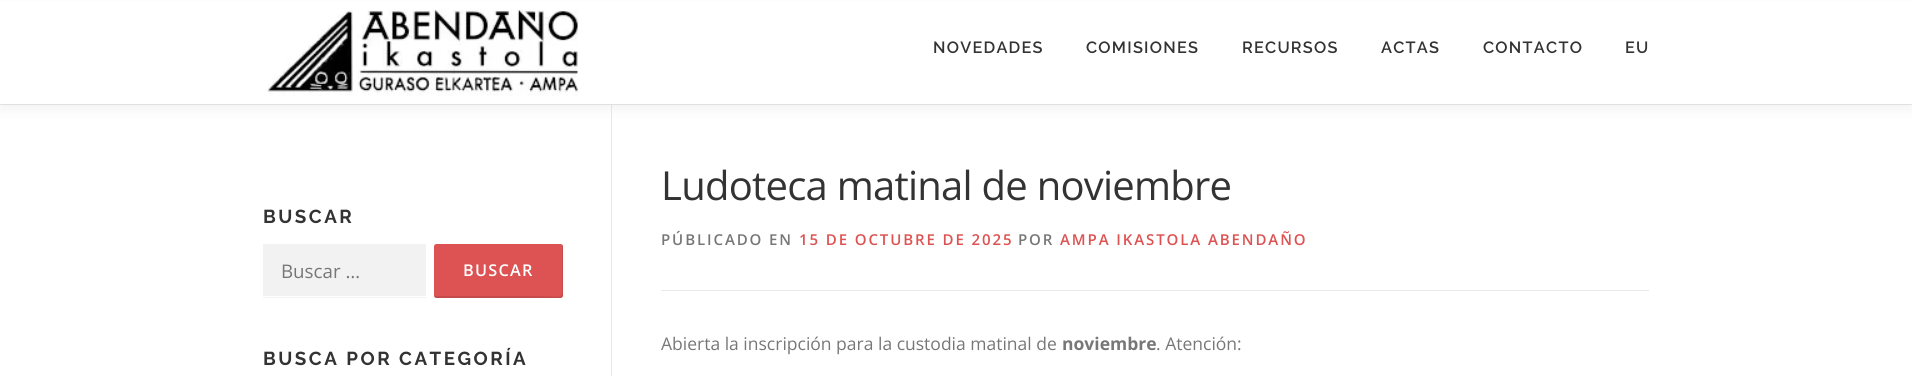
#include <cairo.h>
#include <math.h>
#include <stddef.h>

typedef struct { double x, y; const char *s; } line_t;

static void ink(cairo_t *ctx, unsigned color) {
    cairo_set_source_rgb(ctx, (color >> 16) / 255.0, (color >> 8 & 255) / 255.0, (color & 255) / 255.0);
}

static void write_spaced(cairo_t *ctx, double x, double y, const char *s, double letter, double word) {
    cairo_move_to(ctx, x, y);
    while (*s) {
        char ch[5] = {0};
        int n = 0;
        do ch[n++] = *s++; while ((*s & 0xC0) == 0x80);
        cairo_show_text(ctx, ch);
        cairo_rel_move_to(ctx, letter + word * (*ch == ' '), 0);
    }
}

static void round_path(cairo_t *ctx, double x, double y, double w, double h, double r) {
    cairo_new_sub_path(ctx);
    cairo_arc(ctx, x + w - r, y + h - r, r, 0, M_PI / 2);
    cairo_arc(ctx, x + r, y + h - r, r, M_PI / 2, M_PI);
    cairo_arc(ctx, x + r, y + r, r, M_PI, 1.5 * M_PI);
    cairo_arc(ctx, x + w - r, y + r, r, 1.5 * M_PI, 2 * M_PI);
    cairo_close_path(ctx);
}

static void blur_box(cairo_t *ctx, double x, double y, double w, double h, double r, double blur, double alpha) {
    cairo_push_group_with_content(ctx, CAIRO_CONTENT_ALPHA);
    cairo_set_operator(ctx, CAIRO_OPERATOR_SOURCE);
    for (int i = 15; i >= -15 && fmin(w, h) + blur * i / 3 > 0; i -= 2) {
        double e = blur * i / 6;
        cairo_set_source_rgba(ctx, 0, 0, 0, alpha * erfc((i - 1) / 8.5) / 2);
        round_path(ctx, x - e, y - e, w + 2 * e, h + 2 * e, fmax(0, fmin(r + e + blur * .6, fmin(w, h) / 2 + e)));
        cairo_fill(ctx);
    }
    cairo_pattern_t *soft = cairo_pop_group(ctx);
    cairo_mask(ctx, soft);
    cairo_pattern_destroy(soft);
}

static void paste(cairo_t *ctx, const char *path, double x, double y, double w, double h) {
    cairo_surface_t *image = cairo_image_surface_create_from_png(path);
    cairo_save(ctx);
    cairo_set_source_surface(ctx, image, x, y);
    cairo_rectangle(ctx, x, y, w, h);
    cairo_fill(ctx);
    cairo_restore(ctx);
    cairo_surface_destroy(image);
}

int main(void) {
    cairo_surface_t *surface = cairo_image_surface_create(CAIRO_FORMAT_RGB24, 1912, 376);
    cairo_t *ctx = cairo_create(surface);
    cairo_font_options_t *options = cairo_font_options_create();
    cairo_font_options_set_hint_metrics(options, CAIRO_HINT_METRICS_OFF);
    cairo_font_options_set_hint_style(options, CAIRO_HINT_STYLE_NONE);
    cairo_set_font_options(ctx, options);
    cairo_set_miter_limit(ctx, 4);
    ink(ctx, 0xFFFFFF);
    cairo_paint(ctx);
    ink(ctx, 0xE9E9E9);
    cairo_rectangle(ctx, 0, 104, 1912, 1);
    cairo_fill(ctx);
    cairo_rectangle(ctx, 611, 105, 1, 271);
    cairo_fill(ctx);
    ink(ctx, 0x323232);
    blur_box(ctx, 0, 6, 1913, 104, 0, 6, 0.06);
    ink(ctx, 0xFFFFFF);
    cairo_rectangle(ctx, 0, 1, 1912, 103);
    cairo_fill(ctx);
    paste(ctx, "media/1.png", 267, 9, 312, 87);
    cairo_select_font_face(ctx, "Raleway SemiBold", CAIRO_FONT_SLANT_NORMAL, CAIRO_FONT_WEIGHT_NORMAL);
    cairo_set_font_size(ctx, 16.25);
    ink(ctx, 0x333333);
    {
        static const line_t items[] = {
            {933, 53, "NOVEDADES"},
            {1086, 53, "COMISIONES"},
            {1242, 53, "RECURSOS"},
            {1381, 53, "ACTAS"},
            {1483, 53, "CONTACTO"},
            {1625, 53, "EU"},
        };
        for (size_t i = 0; i < sizeof items / sizeof *items; i++) {
            write_spaced(ctx, items[i].x, items[i].y, items[i].s, 1.25, 0);
        }
    }
    cairo_select_font_face(ctx, "Raleway", CAIRO_FONT_SLANT_NORMAL, CAIRO_FONT_WEIGHT_BOLD);
    cairo_set_font_size(ctx, 18.75);
    write_spaced(ctx, 263, 223, "BUSCAR", 2.5, 0);
    ink(ctx, 0xF2F2F2);
    cairo_rectangle(ctx, 263, 244, 163, 54);
    cairo_fill(ctx);
    ink(ctx, 0xFFFFFF);
    cairo_rectangle(ctx, 263, 296, 163, 1);
    cairo_fill(ctx);
    cairo_select_font_face(ctx, "Open Sans", CAIRO_FONT_SLANT_NORMAL, CAIRO_FONT_WEIGHT_NORMAL);
    ink(ctx, 0x777777);
    cairo_move_to(ctx, 281, 278);
    cairo_show_text(ctx, "Buscar …");
    ink(ctx, 0xDD5252);
    round_path(ctx, 434, 244, 129, 54, 2.5);
    cairo_fill(ctx);
    cairo_set_source_rgba(ctx, 0, 0, 0, 0.1);
    cairo_new_path(ctx);
    cairo_move_to(ctx, 434, 294);
    cairo_line_to(ctx, 434, 296);
    cairo_curve_to(ctx, 434, 297, 435, 298, 436, 298);
    cairo_line_to(ctx, 560, 298);
    cairo_curve_to(ctx, 562, 298, 563, 297, 563, 296);
    cairo_line_to(ctx, 563, 246);
    cairo_curve_to(ctx, 563, 246, 563, 245, 562, 244);
    cairo_line_to(ctx, 562, 278);
    cairo_curve_to(ctx, 562, 302, 566, 296, 539, 296);
    cairo_line_to(ctx, 436, 296);
    cairo_curve_to(ctx, 435, 296, 434, 295, 434, 294);
    cairo_close_path(ctx);
    cairo_fill(ctx);
    cairo_select_font_face(ctx, "Open Sans SemiBold", CAIRO_FONT_SLANT_NORMAL, CAIRO_FONT_WEIGHT_NORMAL);
    cairo_set_font_size(ctx, 16.25);
    ink(ctx, 0xFFFFFF);
    write_spaced(ctx, 463, 276, "BUSCAR", 1.25, 0);
    cairo_select_font_face(ctx, "Raleway", CAIRO_FONT_SLANT_NORMAL, CAIRO_FONT_WEIGHT_BOLD);
    cairo_set_font_size(ctx, 18.75);
    ink(ctx, 0x333333);
    write_spaced(ctx, 263, 365, "BUSCA POR CATEGORÍA", 2.5, 0);
    cairo_select_font_face(ctx, "Open Sans", CAIRO_FONT_SLANT_NORMAL, CAIRO_FONT_WEIGHT_NORMAL);
    cairo_set_font_size(ctx, 40);
    write_spaced(ctx, 661, 200, "Ludoteca matinal de noviembre", -0.75, 0);
    ink(ctx, 0xE9E9E9);
    cairo_rectangle(ctx, 661, 290, 988, 1);
    cairo_fill(ctx);
    cairo_select_font_face(ctx, "Open Sans SemiBold", CAIRO_FONT_SLANT_NORMAL, CAIRO_FONT_WEIGHT_NORMAL);
    cairo_set_font_size(ctx, 15);
    ink(ctx, 0x777777);
    write_spaced(ctx, 661, 245, "PÚBLICADO EN", 1.9, 0);
    ink(ctx, 0xDD5252);
    write_spaced(ctx, 799, 245, "15 DE OCTUBRE DE 2025", 1.9, 0);
    ink(ctx, 0x777777);
    write_spaced(ctx, 1018, 245, "POR", 1.9, 0);
    ink(ctx, 0xDD5252);
    write_spaced(ctx, 1060, 245, "AMPA IKASTOLA ABENDAÑO", 1.9, 0);
    cairo_select_font_face(ctx, "Open Sans", CAIRO_FONT_SLANT_NORMAL, CAIRO_FONT_WEIGHT_NORMAL);
    cairo_set_font_size(ctx, 17.5);
    ink(ctx, 0x777777);
    cairo_move_to(ctx, 661, 350);
    cairo_show_text(ctx, "Abierta la inscripción para la custodia matinal de");
    cairo_select_font_face(ctx, "Open Sans", CAIRO_FONT_SLANT_NORMAL, CAIRO_FONT_WEIGHT_BOLD);
    cairo_move_to(ctx, 1062, 350);
    cairo_show_text(ctx, "noviembre");
    cairo_select_font_face(ctx, "Open Sans", CAIRO_FONT_SLANT_NORMAL, CAIRO_FONT_WEIGHT_NORMAL);
    cairo_move_to(ctx, 1156, 350);
    cairo_show_text(ctx, ". Atención:");
    cairo_surface_write_to_png(surface, "image.png");
    cairo_font_options_destroy(options);
    cairo_destroy(ctx);
    cairo_surface_destroy(surface);
    return 0;
}
